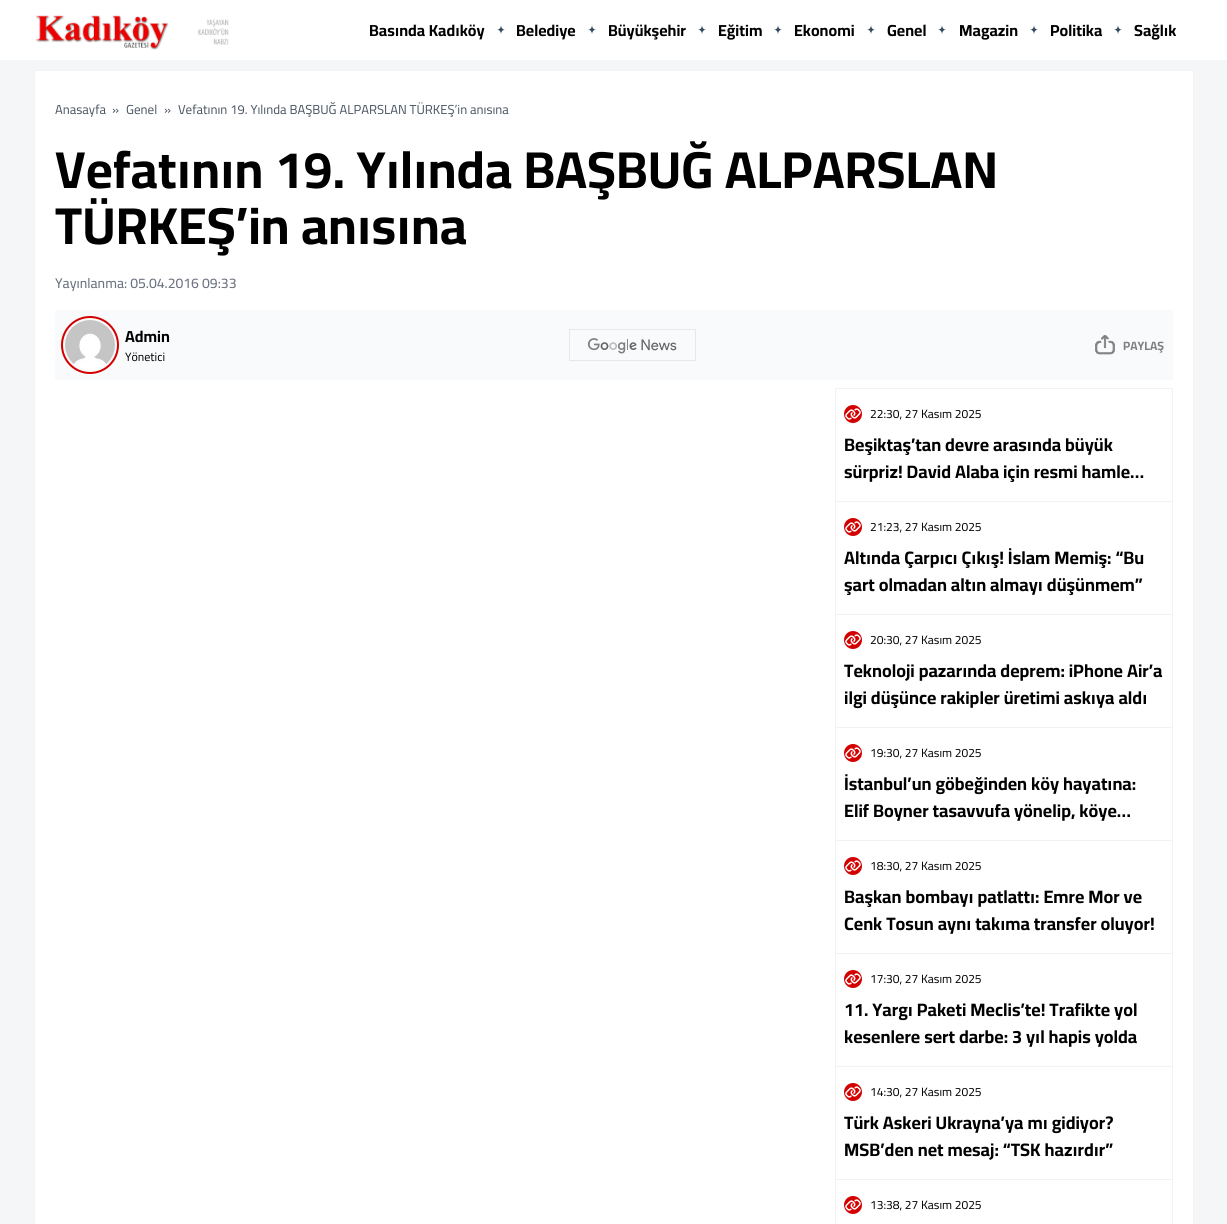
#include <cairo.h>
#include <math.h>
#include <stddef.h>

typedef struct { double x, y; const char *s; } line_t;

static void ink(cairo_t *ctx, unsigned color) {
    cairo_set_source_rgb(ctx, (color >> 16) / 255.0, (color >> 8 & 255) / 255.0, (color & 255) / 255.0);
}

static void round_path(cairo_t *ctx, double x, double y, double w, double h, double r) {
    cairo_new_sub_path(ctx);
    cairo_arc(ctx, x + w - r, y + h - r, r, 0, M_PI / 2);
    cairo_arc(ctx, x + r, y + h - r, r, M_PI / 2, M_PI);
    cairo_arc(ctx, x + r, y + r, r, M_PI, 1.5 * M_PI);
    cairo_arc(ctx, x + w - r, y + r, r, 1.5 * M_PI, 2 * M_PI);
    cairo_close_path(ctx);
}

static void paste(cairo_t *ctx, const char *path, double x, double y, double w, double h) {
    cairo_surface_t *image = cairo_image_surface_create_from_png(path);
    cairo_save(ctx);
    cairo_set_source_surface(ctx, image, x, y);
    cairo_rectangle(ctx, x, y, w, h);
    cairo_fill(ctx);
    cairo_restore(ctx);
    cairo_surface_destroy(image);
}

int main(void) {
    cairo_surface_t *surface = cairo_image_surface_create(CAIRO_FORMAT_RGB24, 1227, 1224);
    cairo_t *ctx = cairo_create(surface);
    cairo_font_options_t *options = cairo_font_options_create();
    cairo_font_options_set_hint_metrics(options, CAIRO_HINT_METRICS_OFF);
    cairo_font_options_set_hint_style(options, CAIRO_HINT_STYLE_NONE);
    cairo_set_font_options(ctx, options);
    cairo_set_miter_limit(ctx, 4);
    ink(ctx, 0xF4F6F7);
    cairo_paint(ctx);
    ink(ctx, 0xFFFFFF);
    cairo_rectangle(ctx, 0, 0, 1227, 60);
    cairo_fill(ctx);
    paste(ctx, "media/1.png", 36, 15, 193, 35);
    cairo_select_font_face(ctx, "Cairo", CAIRO_FONT_SLANT_NORMAL, CAIRO_FONT_WEIGHT_BOLD);
    cairo_set_font_size(ctx, 16);
    ink(ctx, 0x000000);
    cairo_move_to(ctx, 369, 36);
    cairo_show_text(ctx, "Basında Kadıköy");
    paste(ctx, "media/2.png", 497, 25, 8, 9);
    cairo_move_to(ctx, 516, 36);
    cairo_show_text(ctx, "Belediye");
    paste(ctx, "media/2.png", 588, 25, 8, 9);
    cairo_move_to(ctx, 608, 36);
    cairo_show_text(ctx, "Büyükşehir");
    paste(ctx, "media/2.png", 698, 25, 8, 9);
    cairo_move_to(ctx, 718, 36);
    cairo_show_text(ctx, "Eğitim");
    paste(ctx, "media/2.png", 774, 25, 8, 9);
    cairo_move_to(ctx, 794, 36);
    cairo_show_text(ctx, "Ekonomi");
    paste(ctx, "media/2.png", 867, 25, 8, 9);
    cairo_move_to(ctx, 887, 36);
    cairo_show_text(ctx, "Genel");
    paste(ctx, "media/2.png", 938, 25, 8, 9);
    cairo_move_to(ctx, 959, 36);
    cairo_show_text(ctx, "Magazin");
    paste(ctx, "media/2.png", 1030, 25, 8, 9);
    cairo_move_to(ctx, 1050, 36);
    cairo_show_text(ctx, "Politika");
    paste(ctx, "media/2.png", 1114, 25, 8, 9);
    cairo_move_to(ctx, 1134, 36);
    cairo_show_text(ctx, "Sağlık");
    ink(ctx, 0xFFFFFF);
    cairo_rectangle(ctx, 34.5, 70.5, 1159, 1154);
    cairo_fill_preserve(ctx);
    ink(ctx, 0xF2F2F2);
    cairo_set_line_width(ctx, 1);
    cairo_stroke(ctx);
    cairo_select_font_face(ctx, "Cairo", CAIRO_FONT_SLANT_NORMAL, CAIRO_FONT_WEIGHT_NORMAL);
    cairo_set_font_size(ctx, 13);
    ink(ctx, 0x4B5563);
    {
        static const line_t items[] = {
            {55, 114, "Anasayfa"},
            {112, 114, "»"},
            {126, 114, "Genel"},
            {164, 114, "»"},
            {178, 114, "Vefatının 19. Yılında BAŞBUĞ ALPARSLAN TÜRKEŞ’in anısına"},
        };
        for (size_t i = 0; i < sizeof items / sizeof *items; i++) {
            cairo_move_to(ctx, items[i].x, items[i].y);
            cairo_show_text(ctx, items[i].s);
        }
    }
    cairo_select_font_face(ctx, "Cairo", CAIRO_FONT_SLANT_NORMAL, CAIRO_FONT_WEIGHT_BOLD);
    cairo_set_font_size(ctx, 52);
    ink(ctx, 0x000000);
    cairo_move_to(ctx, 55, 188);
    cairo_show_text(ctx, "Vefatının 19. Yılında BAŞBUĞ ALPARSLAN");
    cairo_move_to(ctx, 55, 244);
    cairo_show_text(ctx, "TÜRKEŞ’in anısına");
    cairo_select_font_face(ctx, "Cairo Medium", CAIRO_FONT_SLANT_NORMAL, CAIRO_FONT_WEIGHT_NORMAL);
    cairo_set_font_size(ctx, 14);
    ink(ctx, 0x6B7280);
    cairo_move_to(ctx, 55, 288);
    cairo_show_text(ctx, "Yayınlanma: 05.04.2016 09:33");
    ink(ctx, 0xF9FAFB);
    cairo_rectangle(ctx, 55, 310, 1118, 70);
    cairo_fill(ctx);
    paste(ctx, "media/3.png", 65, 320, 50, 50);
    cairo_arc(ctx, 90, 345, 28, 0, 2 * M_PI);
    ink(ctx, 0xD30000);
    cairo_set_line_width(ctx, 2);
    cairo_stroke(ctx);
    cairo_select_font_face(ctx, "Cairo", CAIRO_FONT_SLANT_NORMAL, CAIRO_FONT_WEIGHT_BOLD);
    cairo_set_font_size(ctx, 16);
    ink(ctx, 0x000000);
    cairo_move_to(ctx, 125, 342);
    cairo_show_text(ctx, "Admin");
    cairo_select_font_face(ctx, "Cairo", CAIRO_FONT_SLANT_NORMAL, CAIRO_FONT_WEIGHT_NORMAL);
    cairo_set_font_size(ctx, 12);
    cairo_move_to(ctx, 125, 361);
    cairo_show_text(ctx, "Yönetici");
    cairo_rectangle(ctx, 569.5, 329.5, 126, 31);
    ink(ctx, 0xE7E7E7);
    cairo_set_line_width(ctx, 1);
    cairo_stroke(ctx);
    paste(ctx, "media/4.png", 587, 338, 90, 16);
    paste(ctx, "media/5.png", 1095, 335, 20, 20);
    cairo_select_font_face(ctx, "Cairo", CAIRO_FONT_SLANT_NORMAL, CAIRO_FONT_WEIGHT_BOLD);
    ink(ctx, 0x7F7F7F);
    cairo_move_to(ctx, 1123, 350);
    cairo_show_text(ctx, "PAYLAŞ");
    round_path(ctx, 835.5, 388.5, 337, 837, 0.5);
    ink(ctx, 0xF2F2F2);
    cairo_stroke(ctx);
    cairo_rectangle(ctx, 836, 501, 336, 1);
    cairo_fill(ctx);
    paste(ctx, "media/6.png", 844, 405, 18, 18);
    cairo_select_font_face(ctx, "Cairo", CAIRO_FONT_SLANT_NORMAL, CAIRO_FONT_WEIGHT_NORMAL);
    ink(ctx, 0x000000);
    cairo_move_to(ctx, 870, 418);
    cairo_show_text(ctx, "22:30, 27 Kasım 2025");
    cairo_select_font_face(ctx, "Cairo", CAIRO_FONT_SLANT_NORMAL, CAIRO_FONT_WEIGHT_BOLD);
    cairo_set_font_size(ctx, 18);
    cairo_move_to(ctx, 844, 451);
    cairo_show_text(ctx, "Beşiktaş’tan devre arasında büyük");
    cairo_move_to(ctx, 844, 478);
    cairo_show_text(ctx, "sürpriz! David Alaba için resmi hamle…");
    ink(ctx, 0xF2F2F2);
    cairo_rectangle(ctx, 836, 614, 336, 1);
    cairo_fill(ctx);
    paste(ctx, "media/6.png", 844, 518, 18, 18);
    cairo_select_font_face(ctx, "Cairo", CAIRO_FONT_SLANT_NORMAL, CAIRO_FONT_WEIGHT_NORMAL);
    cairo_set_font_size(ctx, 12);
    ink(ctx, 0x000000);
    cairo_move_to(ctx, 870, 531);
    cairo_show_text(ctx, "21:23, 27 Kasım 2025");
    cairo_select_font_face(ctx, "Cairo", CAIRO_FONT_SLANT_NORMAL, CAIRO_FONT_WEIGHT_BOLD);
    cairo_set_font_size(ctx, 18);
    cairo_move_to(ctx, 844, 564);
    cairo_show_text(ctx, "Altında Çarpıcı Çıkış! İslam Memiş: “Bu");
    cairo_move_to(ctx, 844, 591);
    cairo_show_text(ctx, "şart olmadan altın almayı düşünmem”");
    ink(ctx, 0xF2F2F2);
    cairo_rectangle(ctx, 836, 727, 336, 1);
    cairo_fill(ctx);
    paste(ctx, "media/6.png", 844, 631, 18, 18);
    cairo_select_font_face(ctx, "Cairo", CAIRO_FONT_SLANT_NORMAL, CAIRO_FONT_WEIGHT_NORMAL);
    cairo_set_font_size(ctx, 12);
    ink(ctx, 0x000000);
    cairo_move_to(ctx, 870, 644);
    cairo_show_text(ctx, "20:30, 27 Kasım 2025");
    cairo_save(ctx);
    cairo_rectangle(ctx, 844, 657, 320, 54);
    cairo_clip(ctx);
    cairo_select_font_face(ctx, "Cairo", CAIRO_FONT_SLANT_NORMAL, CAIRO_FONT_WEIGHT_BOLD);
    cairo_set_font_size(ctx, 18);
    cairo_move_to(ctx, 844, 677);
    cairo_show_text(ctx, "Teknoloji pazarında deprem: iPhone Air’a");
    cairo_restore(ctx);
    cairo_select_font_face(ctx, "Cairo", CAIRO_FONT_SLANT_NORMAL, CAIRO_FONT_WEIGHT_BOLD);
    cairo_set_font_size(ctx, 18);
    cairo_move_to(ctx, 844, 704);
    cairo_show_text(ctx, "ilgi düşünce rakipler üretimi askıya aldı");
    ink(ctx, 0xF2F2F2);
    cairo_rectangle(ctx, 836, 840, 336, 1);
    cairo_fill(ctx);
    paste(ctx, "media/6.png", 844, 744, 18, 18);
    cairo_select_font_face(ctx, "Cairo", CAIRO_FONT_SLANT_NORMAL, CAIRO_FONT_WEIGHT_NORMAL);
    cairo_set_font_size(ctx, 12);
    ink(ctx, 0x000000);
    cairo_move_to(ctx, 870, 757);
    cairo_show_text(ctx, "19:30, 27 Kasım 2025");
    cairo_select_font_face(ctx, "Cairo", CAIRO_FONT_SLANT_NORMAL, CAIRO_FONT_WEIGHT_BOLD);
    cairo_set_font_size(ctx, 18);
    cairo_move_to(ctx, 844, 790);
    cairo_show_text(ctx, "İstanbul’un göbeğinden köy hayatına:");
    cairo_move_to(ctx, 844, 817);
    cairo_show_text(ctx, "Elif Boyner tasavvufa yönelip, köye…");
    ink(ctx, 0xF2F2F2);
    cairo_rectangle(ctx, 836, 953, 336, 1);
    cairo_fill(ctx);
    paste(ctx, "media/6.png", 844, 857, 18, 18);
    cairo_select_font_face(ctx, "Cairo", CAIRO_FONT_SLANT_NORMAL, CAIRO_FONT_WEIGHT_NORMAL);
    cairo_set_font_size(ctx, 12);
    ink(ctx, 0x000000);
    cairo_move_to(ctx, 870, 870);
    cairo_show_text(ctx, "18:30, 27 Kasım 2025");
    cairo_select_font_face(ctx, "Cairo", CAIRO_FONT_SLANT_NORMAL, CAIRO_FONT_WEIGHT_BOLD);
    cairo_set_font_size(ctx, 18);
    cairo_move_to(ctx, 844, 903);
    cairo_show_text(ctx, "Başkan bombayı patlattı: Emre Mor ve");
    cairo_move_to(ctx, 844, 930);
    cairo_show_text(ctx, "Cenk Tosun aynı takıma transfer oluyor!");
    ink(ctx, 0xF2F2F2);
    cairo_rectangle(ctx, 836, 1066, 336, 1);
    cairo_fill(ctx);
    paste(ctx, "media/6.png", 844, 970, 18, 18);
    cairo_select_font_face(ctx, "Cairo", CAIRO_FONT_SLANT_NORMAL, CAIRO_FONT_WEIGHT_NORMAL);
    cairo_set_font_size(ctx, 12);
    ink(ctx, 0x000000);
    cairo_move_to(ctx, 870, 983);
    cairo_show_text(ctx, "17:30, 27 Kasım 2025");
    cairo_select_font_face(ctx, "Cairo", CAIRO_FONT_SLANT_NORMAL, CAIRO_FONT_WEIGHT_BOLD);
    cairo_set_font_size(ctx, 18);
    cairo_move_to(ctx, 844, 1016);
    cairo_show_text(ctx, "11. Yargı Paketi Meclis’te! Trafikte yol");
    cairo_move_to(ctx, 844, 1043);
    cairo_show_text(ctx, "kesenlere sert darbe: 3 yıl hapis yolda");
    ink(ctx, 0xF2F2F2);
    cairo_rectangle(ctx, 836, 1179, 336, 1);
    cairo_fill(ctx);
    paste(ctx, "media/6.png", 844, 1083, 18, 18);
    cairo_select_font_face(ctx, "Cairo", CAIRO_FONT_SLANT_NORMAL, CAIRO_FONT_WEIGHT_NORMAL);
    cairo_set_font_size(ctx, 12);
    ink(ctx, 0x000000);
    cairo_move_to(ctx, 870, 1096);
    cairo_show_text(ctx, "14:30, 27 Kasım 2025");
    cairo_save(ctx);
    cairo_rectangle(ctx, 844, 1109, 320, 54);
    cairo_clip(ctx);
    cairo_select_font_face(ctx, "Cairo", CAIRO_FONT_SLANT_NORMAL, CAIRO_FONT_WEIGHT_BOLD);
    cairo_set_font_size(ctx, 18);
    cairo_move_to(ctx, 844, 1129);
    cairo_show_text(ctx, "Türk Askeri Ukrayna’ya mı gidiyor?");
    cairo_restore(ctx);
    cairo_select_font_face(ctx, "Cairo", CAIRO_FONT_SLANT_NORMAL, CAIRO_FONT_WEIGHT_BOLD);
    cairo_set_font_size(ctx, 18);
    cairo_move_to(ctx, 844, 1156);
    cairo_show_text(ctx, "MSB’den net mesaj: “TSK hazırdır”");
    paste(ctx, "media/6.png", 844, 1196, 18, 18);
    cairo_select_font_face(ctx, "Cairo", CAIRO_FONT_SLANT_NORMAL, CAIRO_FONT_WEIGHT_NORMAL);
    cairo_set_font_size(ctx, 12);
    cairo_move_to(ctx, 870, 1209);
    cairo_show_text(ctx, "13:38, 27 Kasım 2025");
    cairo_surface_write_to_png(surface, "image.png");
    cairo_font_options_destroy(options);
    cairo_destroy(ctx);
    cairo_surface_destroy(surface);
    return 0;
}
